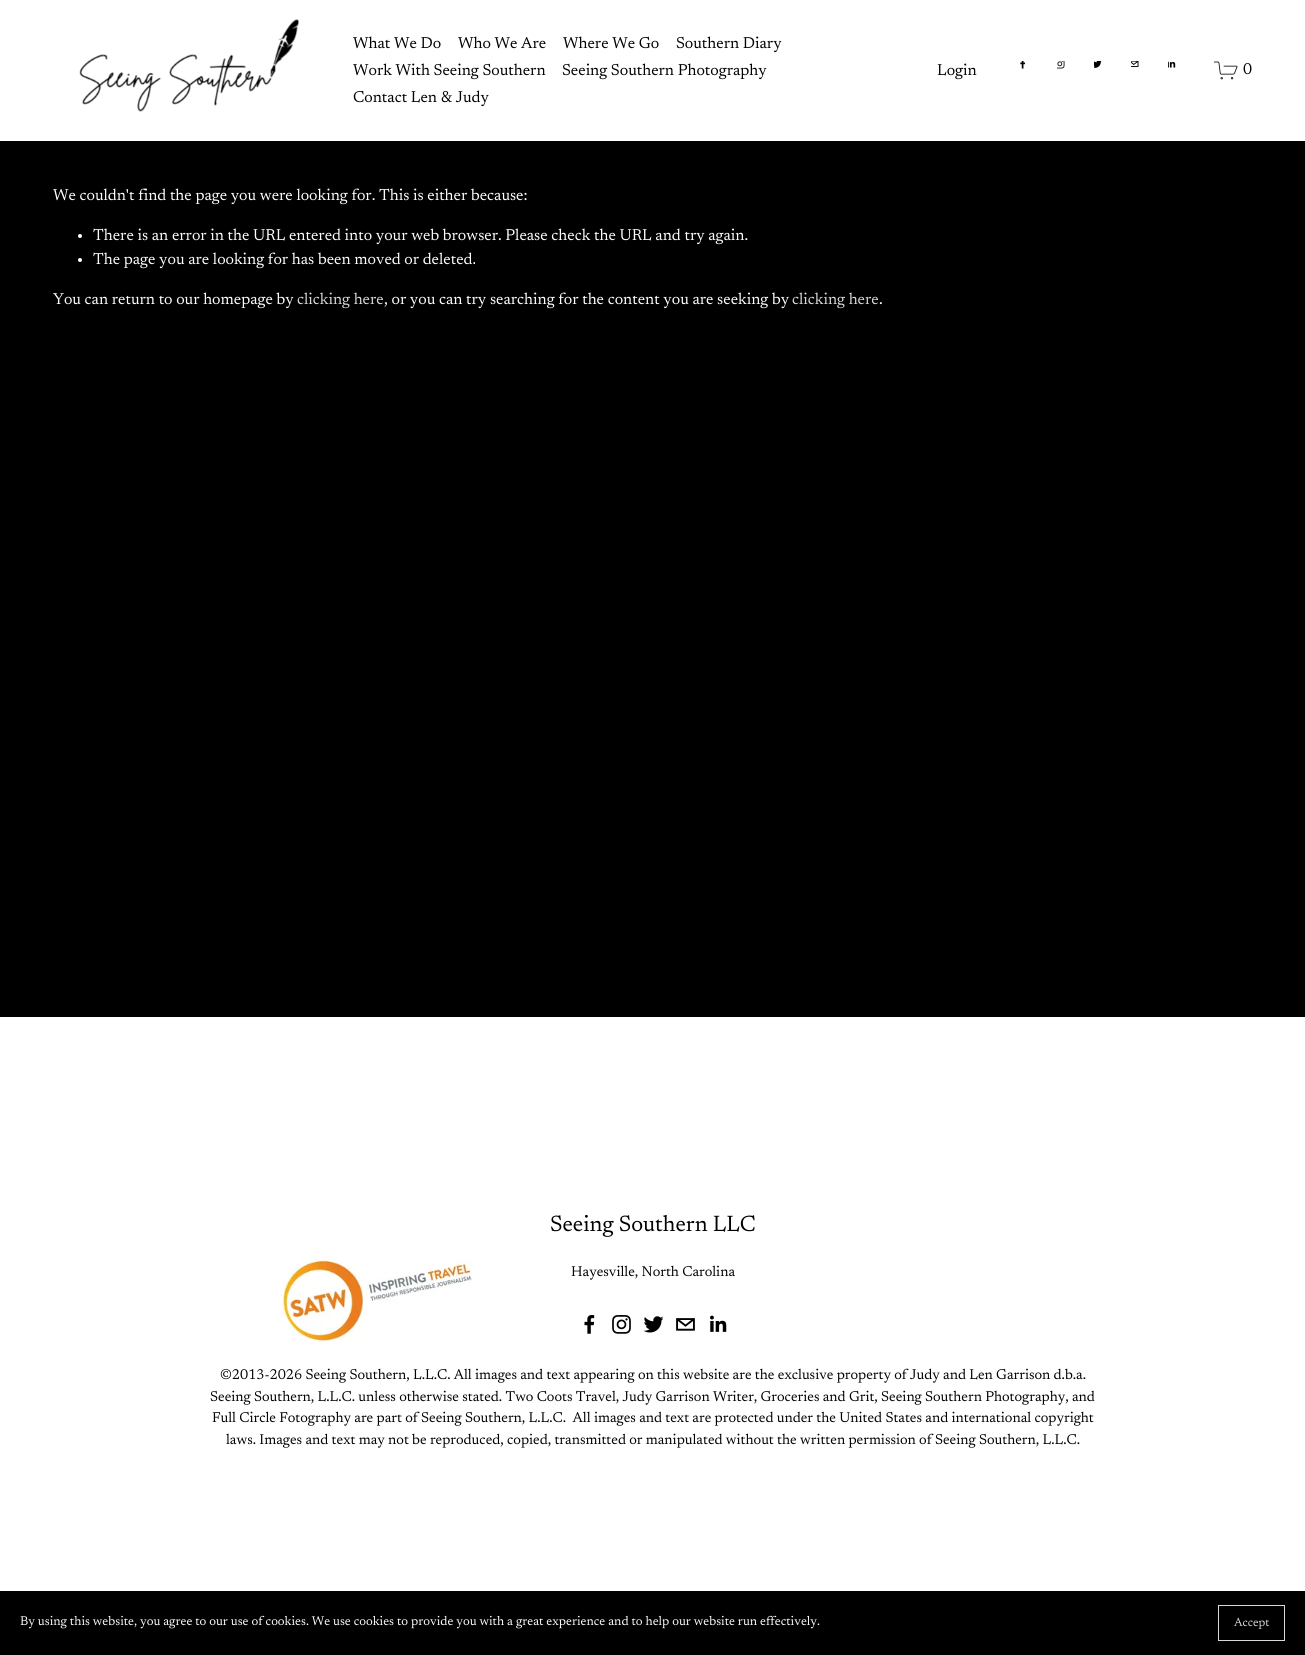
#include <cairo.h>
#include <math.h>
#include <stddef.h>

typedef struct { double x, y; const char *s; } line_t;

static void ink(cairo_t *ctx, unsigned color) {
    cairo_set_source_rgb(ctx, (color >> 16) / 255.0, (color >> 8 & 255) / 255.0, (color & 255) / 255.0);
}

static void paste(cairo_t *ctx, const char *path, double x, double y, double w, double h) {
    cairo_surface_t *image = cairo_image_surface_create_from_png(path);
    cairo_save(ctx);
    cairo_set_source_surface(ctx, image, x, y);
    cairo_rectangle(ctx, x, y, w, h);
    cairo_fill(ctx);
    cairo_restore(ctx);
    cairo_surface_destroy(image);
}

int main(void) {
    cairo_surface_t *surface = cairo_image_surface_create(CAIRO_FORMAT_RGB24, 1305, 1655);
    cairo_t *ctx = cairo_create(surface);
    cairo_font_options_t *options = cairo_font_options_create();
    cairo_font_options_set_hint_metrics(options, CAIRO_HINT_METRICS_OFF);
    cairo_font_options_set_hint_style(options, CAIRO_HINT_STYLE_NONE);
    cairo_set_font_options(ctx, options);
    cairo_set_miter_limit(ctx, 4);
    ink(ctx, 0x000000);
    cairo_paint(ctx);
    ink(ctx, 0xFFFFFF);
    cairo_rectangle(ctx, 0, 0, 1305, 141);
    cairo_fill(ctx);
    paste(ctx, "media/1.png", 79, 19, 220, 93);
    cairo_select_font_face(ctx, "Newsreader", CAIRO_FONT_SLANT_NORMAL, CAIRO_FONT_WEIGHT_NORMAL);
    cairo_set_font_size(ctx, 16);
    ink(ctx, 0x000000);
    {
        static const line_t items[] = {
            {353, 48, "What We Do"},
            {458, 48, "Who We Are"},
            {563, 48, "Where We Go"},
            {676, 48, "Southern Diary"},
            {353, 75, "Work With Seeing Southern"},
            {562, 75, "Seeing Southern Photography"},
            {353, 102, "Contact Len & Judy"},
            {937, 75, "Login"},
        };
        for (size_t i = 0; i < sizeof items / sizeof *items; i++) {
            cairo_move_to(ctx, items[i].x, items[i].y);
            cairo_show_text(ctx, items[i].s);
        }
    }
    paste(ctx, "media/2.png", 1020, 61, 6, 8);
    paste(ctx, "media/3.png", 1057, 61, 8, 8);
    paste(ctx, "media/4.png", 1094, 61, 8, 7);
    paste(ctx, "media/5.png", 1131, 61, 8, 6);
    paste(ctx, "media/6.png", 1168, 61, 8, 7);
    paste(ctx, "media/7.png", 1214, 61, 24, 19);
    cairo_move_to(ctx, 1243, 74);
    cairo_show_text(ctx, "0");
    ink(ctx, 0xFFFFFF);
    cairo_move_to(ctx, 53, 200);
    cairo_show_text(ctx, "We couldn't find the page you were looking for. This is either because:");
    cairo_new_path(ctx);
    cairo_arc(ctx, 80, 236, 2, 0, 2 * M_PI);
    cairo_fill(ctx);
    cairo_move_to(ctx, 93, 240);
    cairo_show_text(ctx, "There is an error in the URL entered into your web browser. Please check the URL and try again.");
    cairo_new_path(ctx);
    cairo_arc(ctx, 80, 260, 2, 0, 2 * M_PI);
    cairo_fill(ctx);
    cairo_move_to(ctx, 93, 264);
    cairo_show_text(ctx, "The page you are looking for has been moved or deleted.");
    cairo_move_to(ctx, 53, 304);
    cairo_show_text(ctx, "You can return to our homepage by");
    ink(ctx, 0xD9D9D9);
    cairo_move_to(ctx, 297, 304);
    cairo_show_text(ctx, "clicking here");
    ink(ctx, 0xFFFFFF);
    cairo_move_to(ctx, 384, 304);
    cairo_show_text(ctx, ", or you can try searching for the content you are seeking by");
    ink(ctx, 0xD9D9D9);
    cairo_move_to(ctx, 792, 304);
    cairo_show_text(ctx, "clicking here");
    ink(ctx, 0xFFFFFF);
    cairo_move_to(ctx, 879, 304);
    cairo_show_text(ctx, ".");
    cairo_rectangle(ctx, 0, 1017, 1305, 574);
    cairo_fill(ctx);
    cairo_set_font_size(ctx, 22.5);
    ink(ctx, 0x000000);
    cairo_move_to(ctx, 550, 1231);
    cairo_show_text(ctx, "Seeing Southern LLC");
    paste(ctx, "media/8.png", 281, 1260, 191, 86);
    cairo_set_font_size(ctx, 14.4);
    cairo_move_to(ctx, 571, 1276);
    cairo_show_text(ctx, "Hayesville, North Carolina");
    paste(ctx, "media/9.png", 584, 1315, 11, 19);
    paste(ctx, "media/10.png", 612, 1315, 19, 19);
    paste(ctx, "media/11.png", 643, 1316, 20, 17);
    paste(ctx, "media/12.png", 676, 1318, 19, 13);
    paste(ctx, "media/13.png", 710, 1315, 17, 17);
    {
        static const line_t items[] = {
            {220, 1379, "©2013-2026 Seeing Southern, L.L.C. All images and text appearing on this website are the exclusive property of Judy and Len Garrison d.b.a."},
            {210, 1401, "Seeing Southern, L.L.C. unless otherwise stated. Two Coots Travel, Judy Garrison Writer, Groceries and Grit, Seeing Southern Photography, and"},
            {212, 1422, "Full Circle Fotography are part of Seeing Southern, L.L.C.  All images and text are protected under the United States and international copyright"},
            {226, 1444, "laws. Images and text may not be reproduced, copied, transmitted or manipulated without the written permission of Seeing Southern, L.L.C."},
        };
        for (size_t i = 0; i < sizeof items / sizeof *items; i++) {
            cairo_move_to(ctx, items[i].x, items[i].y);
            cairo_show_text(ctx, items[i].s);
        }
    }
    cairo_set_font_size(ctx, 12.8);
    ink(ctx, 0xFFFFFF);
    cairo_move_to(ctx, 20, 1625);
    cairo_show_text(ctx, "By using this website, you agree to our use of cookies. We use cookies to provide you with a great experience and to help our website run effectively.");
    cairo_rectangle(ctx, 1218.5, 1605.5, 66, 35);
    ink(ctx, 0xD9D9D9);
    cairo_set_line_width(ctx, 1);
    cairo_stroke(ctx);
    cairo_set_font_size(ctx, 12);
    cairo_move_to(ctx, 1234, 1626);
    cairo_show_text(ctx, "Accept");
    cairo_surface_write_to_png(surface, "image.png");
    cairo_font_options_destroy(options);
    cairo_destroy(ctx);
    cairo_surface_destroy(surface);
    return 0;
}
